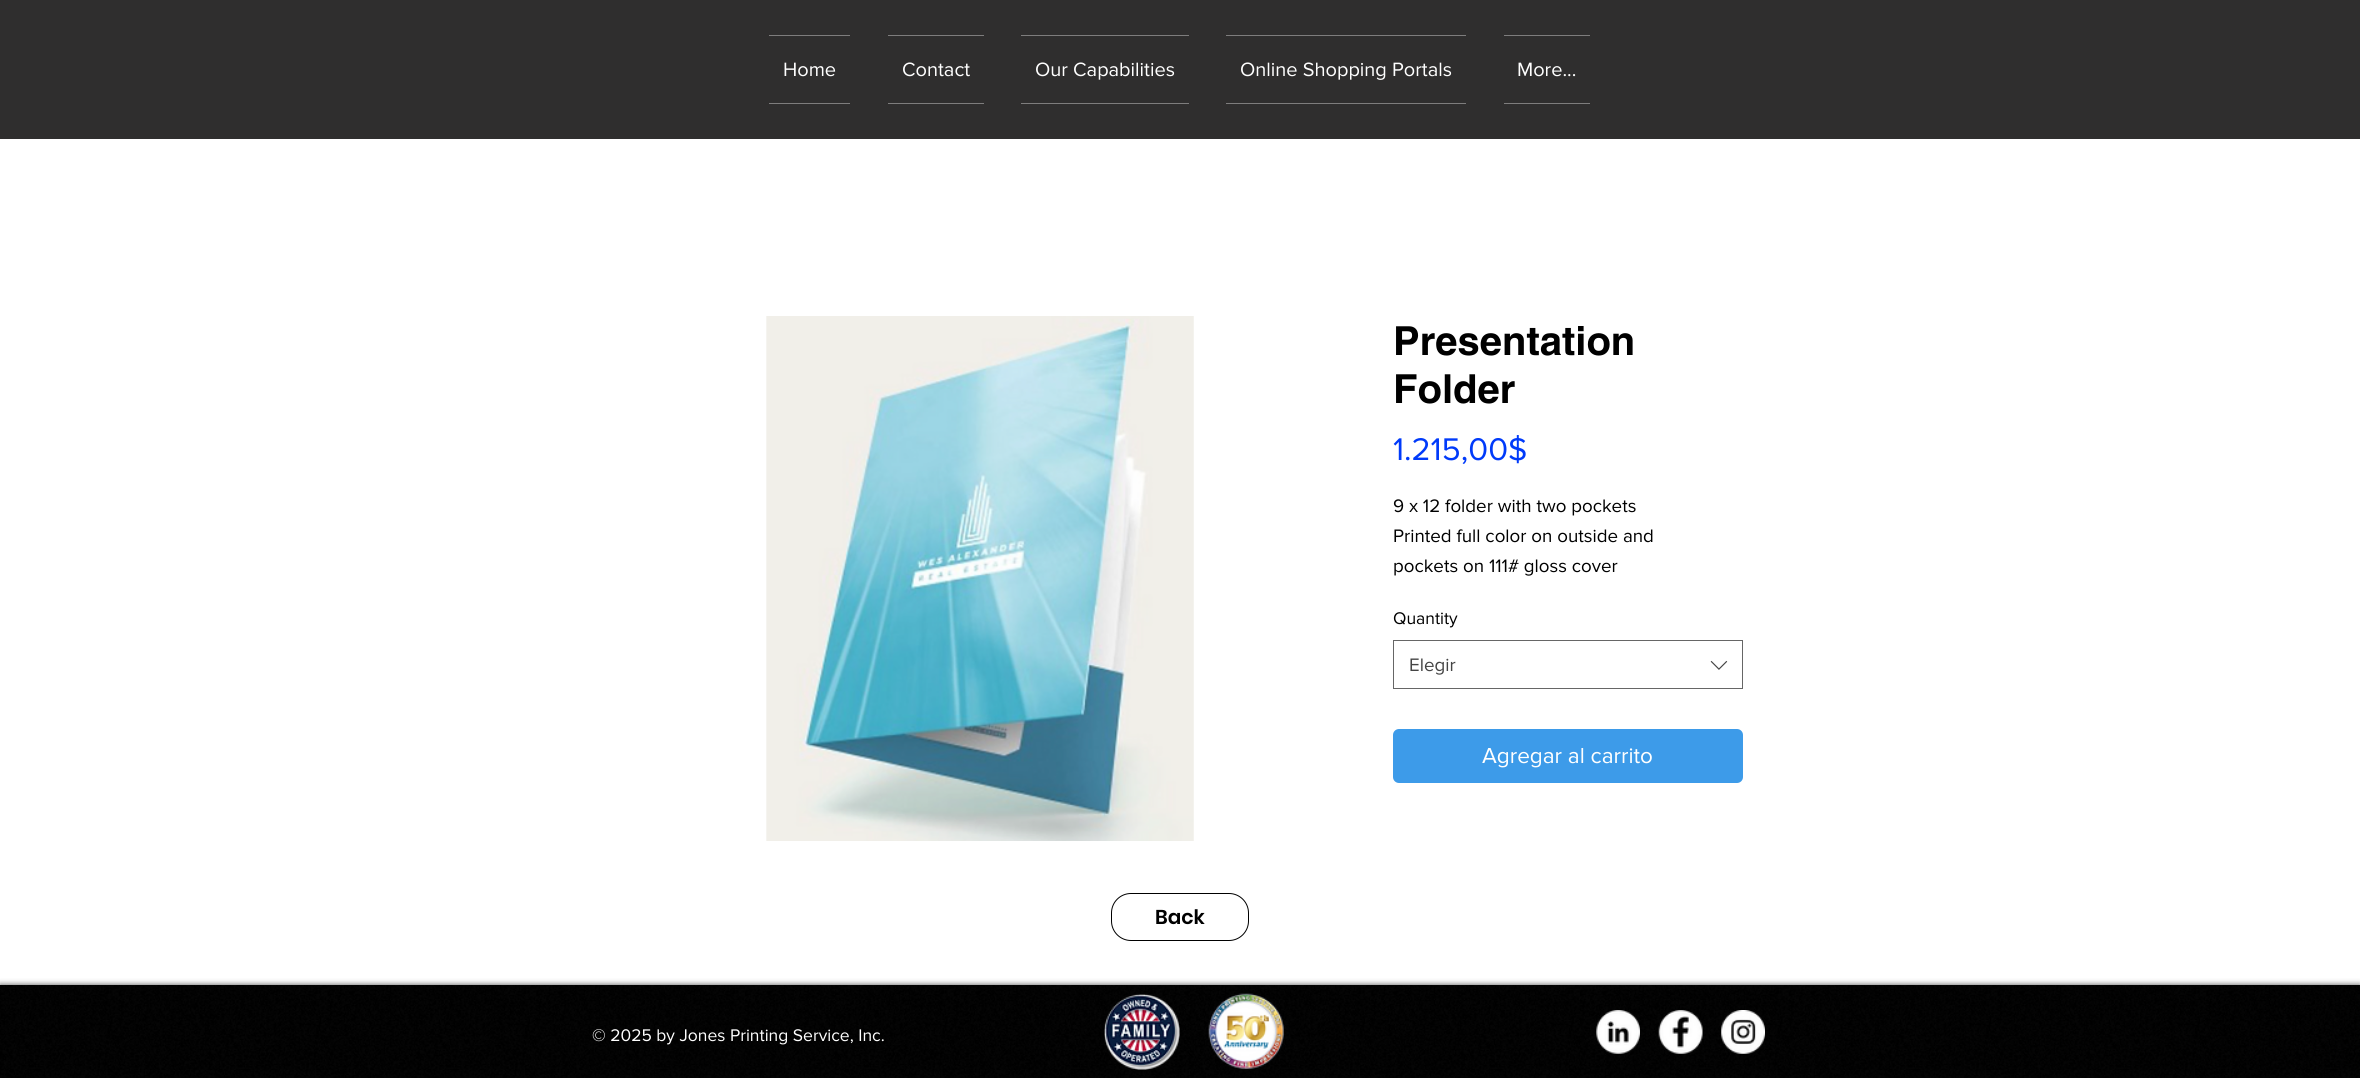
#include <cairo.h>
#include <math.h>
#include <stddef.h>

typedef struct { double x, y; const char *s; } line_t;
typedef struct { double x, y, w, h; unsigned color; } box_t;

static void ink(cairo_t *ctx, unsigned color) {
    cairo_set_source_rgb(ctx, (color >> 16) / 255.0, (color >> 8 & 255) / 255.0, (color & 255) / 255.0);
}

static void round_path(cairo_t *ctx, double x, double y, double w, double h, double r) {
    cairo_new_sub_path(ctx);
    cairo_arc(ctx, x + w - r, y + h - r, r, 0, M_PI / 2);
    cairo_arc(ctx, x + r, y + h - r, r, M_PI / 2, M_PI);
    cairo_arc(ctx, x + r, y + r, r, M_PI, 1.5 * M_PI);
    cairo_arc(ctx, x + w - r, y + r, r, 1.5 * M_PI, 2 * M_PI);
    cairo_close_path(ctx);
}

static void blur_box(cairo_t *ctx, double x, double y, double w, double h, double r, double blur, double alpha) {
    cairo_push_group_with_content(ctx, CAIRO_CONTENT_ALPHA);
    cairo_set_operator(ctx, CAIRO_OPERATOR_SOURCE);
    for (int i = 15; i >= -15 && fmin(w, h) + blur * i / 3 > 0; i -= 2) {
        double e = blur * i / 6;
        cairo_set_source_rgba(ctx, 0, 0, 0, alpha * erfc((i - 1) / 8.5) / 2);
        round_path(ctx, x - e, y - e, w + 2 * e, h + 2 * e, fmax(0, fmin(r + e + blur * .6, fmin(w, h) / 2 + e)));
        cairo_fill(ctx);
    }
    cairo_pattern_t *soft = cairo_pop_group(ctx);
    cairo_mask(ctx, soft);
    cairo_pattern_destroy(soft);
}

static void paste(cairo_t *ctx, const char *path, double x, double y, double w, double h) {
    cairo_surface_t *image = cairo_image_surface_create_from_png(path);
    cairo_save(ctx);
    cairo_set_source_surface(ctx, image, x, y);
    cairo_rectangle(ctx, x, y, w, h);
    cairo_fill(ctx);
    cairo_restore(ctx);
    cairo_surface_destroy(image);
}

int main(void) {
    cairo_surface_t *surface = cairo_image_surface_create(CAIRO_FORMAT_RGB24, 2360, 1078);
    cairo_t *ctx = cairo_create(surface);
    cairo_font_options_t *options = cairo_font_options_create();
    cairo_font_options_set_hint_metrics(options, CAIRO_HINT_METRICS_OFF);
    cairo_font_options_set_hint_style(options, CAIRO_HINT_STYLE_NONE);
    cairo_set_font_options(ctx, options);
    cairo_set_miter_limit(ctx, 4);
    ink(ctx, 0xFFFFFF);
    cairo_paint(ctx);
    {
        static const box_t items[] = {
            {0, 0, 2360, 139, 0x2F2E2E},
            {769, 35, 81, 1, 0x7E7D7D},
            {769, 103, 81, 1, 0x7E7D7D},
        };
        for (size_t i = 0; i < sizeof items / sizeof *items; i++) {
            ink(ctx, items[i].color);
            cairo_rectangle(ctx, items[i].x, items[i].y, items[i].w, items[i].h);
            cairo_fill(ctx);
        }
    }
    cairo_select_font_face(ctx, "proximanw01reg", CAIRO_FONT_SLANT_NORMAL, CAIRO_FONT_WEIGHT_NORMAL);
    cairo_set_font_size(ctx, 20);
    ink(ctx, 0xFFFFFF);
    cairo_move_to(ctx, 783, 76);
    cairo_show_text(ctx, "Home");
    ink(ctx, 0x7E7D7D);
    cairo_rectangle(ctx, 888, 35, 96, 1);
    cairo_fill(ctx);
    cairo_rectangle(ctx, 888, 103, 96, 1);
    cairo_fill(ctx);
    ink(ctx, 0xFFFFFF);
    cairo_move_to(ctx, 902, 76);
    cairo_show_text(ctx, "Contact");
    ink(ctx, 0x7E7D7D);
    cairo_rectangle(ctx, 1021, 35, 168, 1);
    cairo_fill(ctx);
    cairo_rectangle(ctx, 1021, 103, 168, 1);
    cairo_fill(ctx);
    ink(ctx, 0xFFFFFF);
    cairo_move_to(ctx, 1035, 76);
    cairo_show_text(ctx, "Our Capabilities");
    ink(ctx, 0x7E7D7D);
    cairo_rectangle(ctx, 1226, 35, 240, 1);
    cairo_fill(ctx);
    cairo_rectangle(ctx, 1226, 103, 240, 1);
    cairo_fill(ctx);
    ink(ctx, 0xFFFFFF);
    cairo_move_to(ctx, 1240, 76);
    cairo_show_text(ctx, "Online Shopping Portals");
    ink(ctx, 0x7E7D7D);
    cairo_rectangle(ctx, 1504, 35, 86, 1);
    cairo_fill(ctx);
    cairo_rectangle(ctx, 1504, 103, 86, 1);
    cairo_fill(ctx);
    ink(ctx, 0xFFFFFF);
    cairo_move_to(ctx, 1517, 76);
    cairo_show_text(ctx, "More...");
    paste(ctx, "media/1.png", 766, 316, 428, 525);
    cairo_select_font_face(ctx, "helvetica", CAIRO_FONT_SLANT_NORMAL, CAIRO_FONT_WEIGHT_BOLD);
    cairo_set_font_size(ctx, 40);
    ink(ctx, 0x000000);
    cairo_move_to(ctx, 1393, 355);
    cairo_show_text(ctx, "Presentation");
    cairo_move_to(ctx, 1393, 403);
    cairo_show_text(ctx, "Folder");
    cairo_select_font_face(ctx, "proximanw01reg", CAIRO_FONT_SLANT_NORMAL, CAIRO_FONT_WEIGHT_NORMAL);
    cairo_set_font_size(ctx, 32.5);
    ink(ctx, 0x003AFA);
    cairo_move_to(ctx, 1393, 460);
    cairo_show_text(ctx, "1.215,00$");
    cairo_set_font_size(ctx, 18.75);
    ink(ctx, 0x000000);
    {
        static const line_t items[] = {
            {1393, 512, "9 x 12 folder with two pockets"},
            {1393, 542, "Printed full color on outside and"},
            {1393, 572, "pockets on 111# gloss cover"},
        };
        for (size_t i = 0; i < sizeof items / sizeof *items; i++) {
            cairo_move_to(ctx, items[i].x, items[i].y);
            cairo_show_text(ctx, items[i].s);
        }
    }
    cairo_set_font_size(ctx, 17.5);
    cairo_move_to(ctx, 1393, 624);
    cairo_show_text(ctx, "Quantity");
    cairo_rectangle(ctx, 1393.5, 640.5, 349, 48);
    ink(ctx, 0x666666);
    cairo_set_line_width(ctx, 1);
    cairo_stroke(ctx);
    cairo_set_font_size(ctx, 18.75);
    ink(ctx, 0x444444);
    cairo_move_to(ctx, 1409, 671);
    cairo_show_text(ctx, "Elegir");
    paste(ctx, "media/2.png", 1710, 660, 18, 10);
    ink(ctx, 0x3D9BE9);
    round_path(ctx, 1393, 729, 350, 54, 6);
    cairo_fill(ctx);
    cairo_set_font_size(ctx, 22.5);
    ink(ctx, 0xFFFFFF);
    cairo_move_to(ctx, 1482, 763);
    cairo_show_text(ctx, "Agregar al carrito");
    round_path(ctx, 1111.5, 893.5, 137, 47, 19.5);
    ink(ctx, 0x000000);
    cairo_stroke(ctx);
    cairo_select_font_face(ctx, "Poppins SemiBold", CAIRO_FONT_SLANT_NORMAL, CAIRO_FONT_WEIGHT_NORMAL);
    cairo_set_font_size(ctx, 20);
    cairo_move_to(ctx, 1155, 924);
    cairo_show_text(ctx, "Back");
    ink(ctx, 0x000000);
    blur_box(ctx, 0, 985, 2360, 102, 0, 3, 0.7);
    ink(ctx, 0x000000);
    cairo_rectangle(ctx, 0, 985, 2360, 93);
    cairo_fill(ctx);
    paste(ctx, "media/3.png", 0, 985, 2360, 93);
    cairo_select_font_face(ctx, "proximanw01reg", CAIRO_FONT_SLANT_NORMAL, CAIRO_FONT_WEIGHT_NORMAL);
    cairo_set_font_size(ctx, 17.5);
    ink(ctx, 0xFFFFFF);
    cairo_move_to(ctx, 592, 1041);
    cairo_show_text(ctx, "© 2025 by Jones Printing Service, Inc.");
    paste(ctx, "media/4.png", 1104, 994, 76, 76);
    paste(ctx, "media/5.png", 1208, 993, 76, 76);
    paste(ctx, "media/6.png", 1596, 1010, 44, 44);
    paste(ctx, "media/7.png", 1658, 1010, 45, 44);
    paste(ctx, "media/8.png", 1721, 1010, 44, 44);
    cairo_surface_write_to_png(surface, "image.png");
    cairo_font_options_destroy(options);
    cairo_destroy(ctx);
    cairo_surface_destroy(surface);
    return 0;
}
